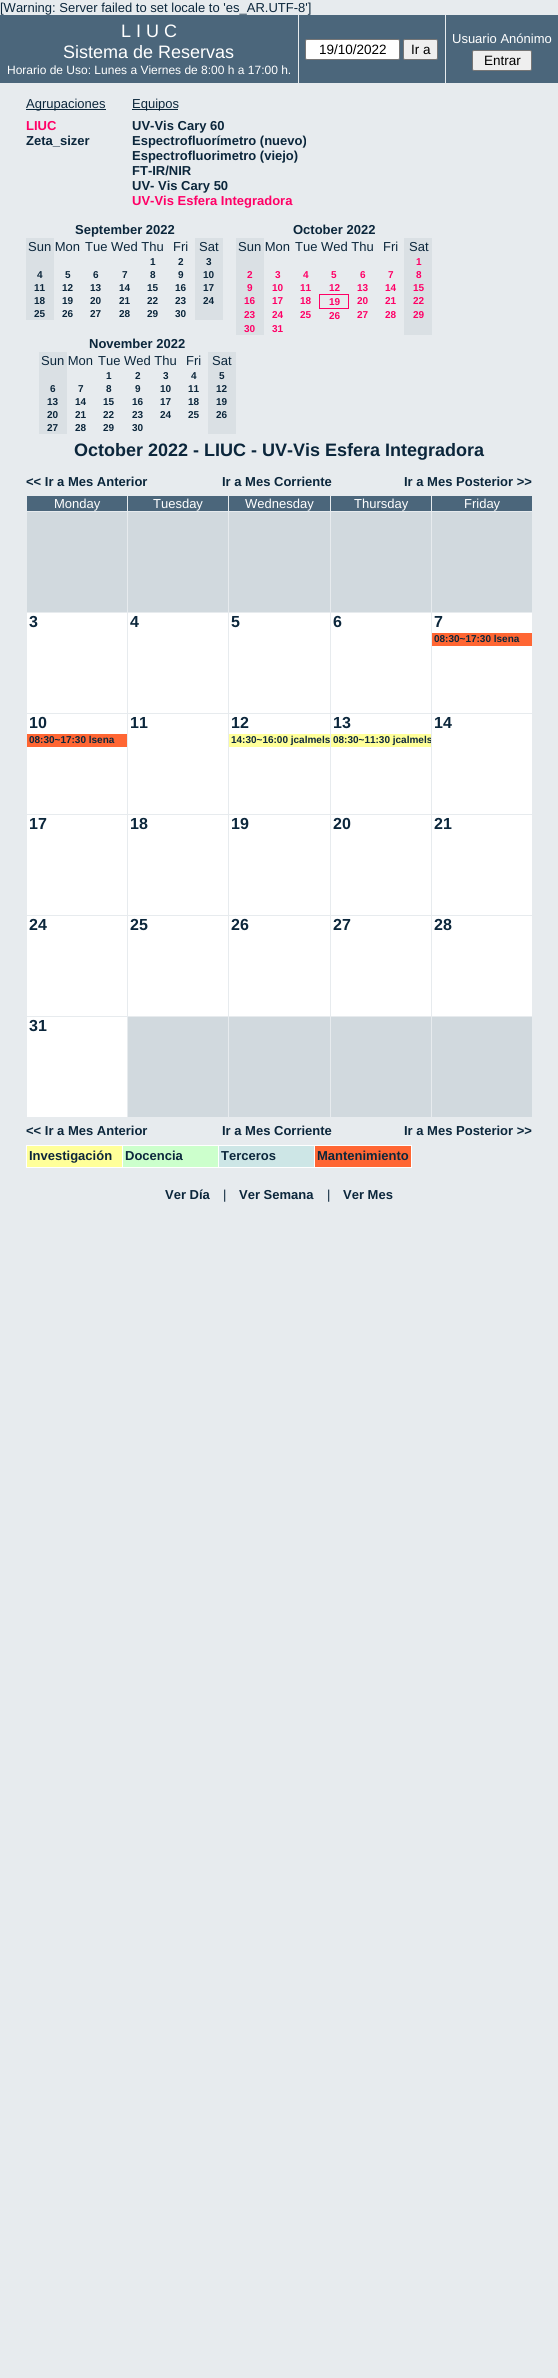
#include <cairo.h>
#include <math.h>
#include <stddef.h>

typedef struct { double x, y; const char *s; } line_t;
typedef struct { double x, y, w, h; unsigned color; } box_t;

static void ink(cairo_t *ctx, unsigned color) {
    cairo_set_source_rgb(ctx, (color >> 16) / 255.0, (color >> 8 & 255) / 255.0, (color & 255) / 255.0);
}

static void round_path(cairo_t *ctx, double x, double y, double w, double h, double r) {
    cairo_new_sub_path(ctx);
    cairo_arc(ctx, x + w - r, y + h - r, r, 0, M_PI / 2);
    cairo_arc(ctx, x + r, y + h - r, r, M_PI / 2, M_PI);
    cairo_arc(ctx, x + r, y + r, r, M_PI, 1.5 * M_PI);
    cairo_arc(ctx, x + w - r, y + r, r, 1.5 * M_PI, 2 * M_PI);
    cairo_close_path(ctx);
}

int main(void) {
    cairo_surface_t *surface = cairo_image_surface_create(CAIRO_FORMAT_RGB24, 558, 2378);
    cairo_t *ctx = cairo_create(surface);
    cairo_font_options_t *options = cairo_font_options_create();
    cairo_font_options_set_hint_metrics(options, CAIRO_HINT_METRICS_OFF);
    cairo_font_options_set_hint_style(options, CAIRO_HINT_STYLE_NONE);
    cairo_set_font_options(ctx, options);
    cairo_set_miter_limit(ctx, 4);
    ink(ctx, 0xE7EBEE);
    cairo_paint(ctx);
    cairo_select_font_face(ctx, "Liberation Sans", CAIRO_FONT_SLANT_NORMAL, CAIRO_FONT_WEIGHT_NORMAL);
    cairo_set_font_size(ctx, 13);
    ink(ctx, 0x0B263B);
    cairo_move_to(ctx, 0, 12);
    cairo_show_text(ctx, "[Warning: Server failed to set locale to 'es_AR.UTF-8']");
    ink(ctx, 0x4B667B);
    cairo_rectangle(ctx, 0, 15, 298, 68);
    cairo_fill(ctx);
    cairo_set_font_size(ctx, 18);
    ink(ctx, 0xFFFFFF);
    cairo_move_to(ctx, 121, 37);
    cairo_show_text(ctx, "L I U C");
    cairo_move_to(ctx, 63, 58);
    cairo_show_text(ctx, "Sistema de Reservas");
    cairo_set_font_size(ctx, 12);
    cairo_move_to(ctx, 7, 74);
    cairo_show_text(ctx, "Horario de Uso: Lunes a Viernes de 8:00 h a 17:00 h.");
    ink(ctx, 0x4B667B);
    cairo_rectangle(ctx, 299, 15, 146, 68);
    cairo_fill(ctx);
    ink(ctx, 0xFFFFFF);
    round_path(ctx, 305.5, 39.5, 94, 20, 1.5);
    cairo_fill_preserve(ctx);
    ink(ctx, 0x767676);
    cairo_set_line_width(ctx, 1);
    cairo_stroke(ctx);
    cairo_set_font_size(ctx, 13.5);
    ink(ctx, 0x000000);
    cairo_move_to(ctx, 319, 54);
    cairo_show_text(ctx, "19/10/2022");
    ink(ctx, 0xEFEFEF);
    round_path(ctx, 403.5, 39.5, 34, 20, 1.5);
    cairo_fill_preserve(ctx);
    ink(ctx, 0x767676);
    cairo_stroke(ctx);
    ink(ctx, 0x000000);
    cairo_move_to(ctx, 411, 54);
    cairo_show_text(ctx, "Ir a");
    ink(ctx, 0x4B667B);
    cairo_rectangle(ctx, 446, 15, 112, 68);
    cairo_fill(ctx);
    cairo_set_font_size(ctx, 13);
    ink(ctx, 0xFFFFFF);
    cairo_move_to(ctx, 452, 43);
    cairo_show_text(ctx, "Usuario Anónimo");
    ink(ctx, 0xEFEFEF);
    round_path(ctx, 472.5, 50.5, 59, 20, 1.5);
    cairo_fill_preserve(ctx);
    ink(ctx, 0x767676);
    cairo_stroke(ctx);
    cairo_set_font_size(ctx, 13.5);
    ink(ctx, 0x000000);
    cairo_move_to(ctx, 484, 65);
    cairo_show_text(ctx, "Entrar");
    ink(ctx, 0x0B263B);
    cairo_rectangle(ctx, 26, 109, 80, 1);
    cairo_fill(ctx);
    cairo_set_font_size(ctx, 13);
    cairo_move_to(ctx, 26, 108);
    cairo_show_text(ctx, "Agrupaciones");
    cairo_select_font_face(ctx, "Liberation Sans", CAIRO_FONT_SLANT_NORMAL, CAIRO_FONT_WEIGHT_BOLD);
    ink(ctx, 0xFF0066);
    cairo_move_to(ctx, 26, 130);
    cairo_show_text(ctx, "LIUC");
    ink(ctx, 0x0B263B);
    cairo_move_to(ctx, 26, 145);
    cairo_show_text(ctx, "Zeta_sizer");
    cairo_rectangle(ctx, 132, 109, 46, 1);
    cairo_fill(ctx);
    cairo_select_font_face(ctx, "Liberation Sans", CAIRO_FONT_SLANT_NORMAL, CAIRO_FONT_WEIGHT_NORMAL);
    cairo_move_to(ctx, 132, 108);
    cairo_show_text(ctx, "Equipos");
    cairo_select_font_face(ctx, "Liberation Sans", CAIRO_FONT_SLANT_NORMAL, CAIRO_FONT_WEIGHT_BOLD);
    {
        static const line_t items[] = {
            {132, 130, "UV-Vis Cary 60"},
            {132, 145, "Espectrofluorímetro (nuevo)"},
            {132, 160, "Espectrofluorimetro (viejo)"},
            {132, 175, "FT-IR/NIR"},
            {132, 190, "UV- Vis Cary 50"},
        };
        for (size_t i = 0; i < sizeof items / sizeof *items; i++) {
            cairo_move_to(ctx, items[i].x, items[i].y);
            cairo_show_text(ctx, items[i].s);
        }
    }
    ink(ctx, 0xFF0066);
    cairo_move_to(ctx, 132, 205);
    cairo_show_text(ctx, "UV-Vis Esfera Integradora");
    ink(ctx, 0x0B263B);
    cairo_move_to(ctx, 75, 234);
    cairo_show_text(ctx, "September 2022");
    ink(ctx, 0xDAE0E4);
    cairo_rectangle(ctx, 26, 238, 28, 82);
    cairo_fill(ctx);
    cairo_select_font_face(ctx, "Liberation Sans", CAIRO_FONT_SLANT_NORMAL, CAIRO_FONT_WEIGHT_NORMAL);
    ink(ctx, 0x0B263B);
    {
        static const line_t items[] = {
            {28, 251, "Sun Mon"},
            {85, 251, "Tue Wed Thu"},
            {173, 251, "Fri"},
        };
        for (size_t i = 0; i < sizeof items / sizeof *items; i++) {
            cairo_move_to(ctx, items[i].x, items[i].y);
            cairo_show_text(ctx, items[i].s);
        }
    }
    ink(ctx, 0xDAE0E4);
    cairo_rectangle(ctx, 195, 238, 28, 82);
    cairo_fill(ctx);
    ink(ctx, 0x0B263B);
    cairo_move_to(ctx, 199, 251);
    cairo_show_text(ctx, "Sat");
    cairo_select_font_face(ctx, "Liberation Sans", CAIRO_FONT_SLANT_NORMAL, CAIRO_FONT_WEIGHT_BOLD);
    cairo_set_font_size(ctx, 10);
    {
        static const line_t items[] = {
            {150, 265, "1"},
            {178, 265, "2"},
            {206, 265, "3"},
            {37, 278, "4"},
            {65, 278, "5"},
            {93, 278, "6"},
            {122, 278, "7"},
            {150, 278, "8"},
            {178, 278, "9"},
            {203, 278, "10"},
            {34, 291, "11"},
            {62, 291, "12"},
            {90, 291, "13"},
            {119, 291, "14"},
            {147, 291, "15"},
            {175, 291, "16"},
            {203, 291, "17"},
            {34, 304, "18"},
            {62, 304, "19"},
            {90, 304, "20"},
            {119, 304, "21"},
            {147, 304, "22"},
            {175, 304, "23"},
            {203, 304, "24"},
            {34, 317, "25"},
            {62, 317, "26"},
            {90, 317, "27"},
            {119, 317, "28"},
            {147, 317, "29"},
            {175, 317, "30"},
        };
        for (size_t i = 0; i < sizeof items / sizeof *items; i++) {
            cairo_move_to(ctx, items[i].x, items[i].y);
            cairo_show_text(ctx, items[i].s);
        }
    }
    cairo_set_font_size(ctx, 13);
    cairo_move_to(ctx, 293, 234);
    cairo_show_text(ctx, "October 2022");
    ink(ctx, 0xDAE0E4);
    cairo_rectangle(ctx, 236, 238, 28, 97);
    cairo_fill(ctx);
    cairo_select_font_face(ctx, "Liberation Sans", CAIRO_FONT_SLANT_NORMAL, CAIRO_FONT_WEIGHT_NORMAL);
    ink(ctx, 0x0B263B);
    {
        static const line_t items[] = {
            {238, 251, "Sun Mon"},
            {295, 251, "Tue Wed Thu"},
            {383, 251, "Fri"},
        };
        for (size_t i = 0; i < sizeof items / sizeof *items; i++) {
            cairo_move_to(ctx, items[i].x, items[i].y);
            cairo_show_text(ctx, items[i].s);
        }
    }
    ink(ctx, 0xDAE0E4);
    cairo_rectangle(ctx, 404, 238, 28, 97);
    cairo_fill(ctx);
    ink(ctx, 0x0B263B);
    cairo_move_to(ctx, 409, 251);
    cairo_show_text(ctx, "Sat");
    cairo_select_font_face(ctx, "Liberation Sans", CAIRO_FONT_SLANT_NORMAL, CAIRO_FONT_WEIGHT_BOLD);
    cairo_set_font_size(ctx, 10);
    ink(ctx, 0xFF0066);
    {
        static const line_t items[] = {
            {416, 265, "1"},
            {247, 278, "2"},
            {275, 278, "3"},
            {303, 278, "4"},
            {331, 278, "5"},
            {360, 278, "6"},
            {388, 278, "7"},
            {416, 278, "8"},
            {247, 291, "9"},
            {272, 291, "10"},
            {300, 291, "11"},
            {329, 291, "12"},
            {357, 291, "13"},
            {385, 291, "14"},
            {413, 291, "15"},
            {244, 304, "16"},
            {272, 304, "17"},
            {300, 304, "18"},
        };
        for (size_t i = 0; i < sizeof items / sizeof *items; i++) {
            cairo_move_to(ctx, items[i].x, items[i].y);
            cairo_show_text(ctx, items[i].s);
        }
    }
    {
        static const box_t items[] = {
            {319, 294, 30, 1, 0xFF0066},
            {348, 294, 1, 15, 0xFF0066},
            {319, 308, 30, 1, 0xFF0066},
            {319, 294, 1, 15, 0xFF0066},
        };
        for (size_t i = 0; i < sizeof items / sizeof *items; i++) {
            ink(ctx, items[i].color);
            cairo_rectangle(ctx, items[i].x, items[i].y, items[i].w, items[i].h);
            cairo_fill(ctx);
        }
    }
    {
        static const line_t items[] = {
            {329, 305, "19"},
            {357, 304, "20"},
            {385, 304, "21"},
            {413, 304, "22"},
            {244, 318, "23"},
            {272, 318, "24"},
            {300, 318, "25"},
            {329, 319, "26"},
            {357, 318, "27"},
            {385, 318, "28"},
            {413, 318, "29"},
            {244, 332, "30"},
            {272, 332, "31"},
        };
        for (size_t i = 0; i < sizeof items / sizeof *items; i++) {
            cairo_move_to(ctx, items[i].x, items[i].y);
            cairo_show_text(ctx, items[i].s);
        }
    }
    cairo_set_font_size(ctx, 13);
    ink(ctx, 0x0B263B);
    cairo_move_to(ctx, 89, 348);
    cairo_show_text(ctx, "November 2022");
    ink(ctx, 0xDAE0E4);
    cairo_rectangle(ctx, 39, 352, 28, 82);
    cairo_fill(ctx);
    cairo_select_font_face(ctx, "Liberation Sans", CAIRO_FONT_SLANT_NORMAL, CAIRO_FONT_WEIGHT_NORMAL);
    ink(ctx, 0x0B263B);
    {
        static const line_t items[] = {
            {41, 365, "Sun Mon"},
            {98, 365, "Tue Wed Thu"},
            {186, 365, "Fri"},
        };
        for (size_t i = 0; i < sizeof items / sizeof *items; i++) {
            cairo_move_to(ctx, items[i].x, items[i].y);
            cairo_show_text(ctx, items[i].s);
        }
    }
    ink(ctx, 0xDAE0E4);
    cairo_rectangle(ctx, 208, 352, 28, 82);
    cairo_fill(ctx);
    ink(ctx, 0x0B263B);
    cairo_move_to(ctx, 212, 365);
    cairo_show_text(ctx, "Sat");
    cairo_select_font_face(ctx, "Liberation Sans", CAIRO_FONT_SLANT_NORMAL, CAIRO_FONT_WEIGHT_BOLD);
    cairo_set_font_size(ctx, 10);
    {
        static const line_t items[] = {
            {106, 379, "1"},
            {135, 379, "2"},
            {163, 379, "3"},
            {191, 379, "4"},
            {219, 379, "5"},
            {50, 392, "6"},
            {78, 392, "7"},
            {106, 392, "8"},
            {135, 392, "9"},
            {160, 392, "10"},
            {188, 392, "11"},
            {216, 392, "12"},
            {47, 405, "13"},
            {75, 405, "14"},
            {103, 405, "15"},
            {132, 405, "16"},
            {160, 405, "17"},
            {188, 405, "18"},
            {216, 405, "19"},
            {47, 418, "20"},
            {75, 418, "21"},
            {103, 418, "22"},
            {132, 418, "23"},
            {160, 418, "24"},
            {188, 418, "25"},
            {216, 418, "26"},
            {47, 431, "27"},
            {75, 431, "28"},
            {103, 431, "29"},
            {132, 431, "30"},
        };
        for (size_t i = 0; i < sizeof items / sizeof *items; i++) {
            cairo_move_to(ctx, items[i].x, items[i].y);
            cairo_show_text(ctx, items[i].s);
        }
    }
    cairo_set_font_size(ctx, 18);
    cairo_move_to(ctx, 74, 456);
    cairo_show_text(ctx, "October 2022 - LIUC - UV-Vis Esfera Integradora");
    cairo_set_font_size(ctx, 13);
    {
        static const line_t items[] = {
            {26, 486, "<< Ir a Mes Anterior"},
            {222, 486, "Ir a Mes Corriente"},
            {404, 486, "Ir a Mes Posterior >>"},
        };
        for (size_t i = 0; i < sizeof items / sizeof *items; i++) {
            cairo_move_to(ctx, items[i].x, items[i].y);
            cairo_show_text(ctx, items[i].s);
        }
    }
    ink(ctx, 0x4B667B);
    cairo_rectangle(ctx, 27, 496, 100, 15);
    cairo_fill(ctx);
    cairo_select_font_face(ctx, "Liberation Sans", CAIRO_FONT_SLANT_NORMAL, CAIRO_FONT_WEIGHT_NORMAL);
    ink(ctx, 0xFFFFFF);
    cairo_move_to(ctx, 54, 508);
    cairo_show_text(ctx, "Monday");
    ink(ctx, 0x4B667B);
    cairo_rectangle(ctx, 128, 496, 100, 15);
    cairo_fill(ctx);
    ink(ctx, 0xFFFFFF);
    cairo_move_to(ctx, 153, 508);
    cairo_show_text(ctx, "Tuesday");
    ink(ctx, 0x4B667B);
    cairo_rectangle(ctx, 229, 496, 101, 15);
    cairo_fill(ctx);
    ink(ctx, 0xFFFFFF);
    cairo_move_to(ctx, 245, 508);
    cairo_show_text(ctx, "Wednesday");
    ink(ctx, 0x4B667B);
    cairo_rectangle(ctx, 331, 496, 100, 15);
    cairo_fill(ctx);
    ink(ctx, 0xFFFFFF);
    cairo_move_to(ctx, 354, 508);
    cairo_show_text(ctx, "Thursday");
    ink(ctx, 0x4B667B);
    cairo_rectangle(ctx, 432, 496, 100, 15);
    cairo_fill(ctx);
    ink(ctx, 0xFFFFFF);
    cairo_move_to(ctx, 464, 508);
    cairo_show_text(ctx, "Friday");
    {
        static const box_t items[] = {
            {27, 512, 100, 100, 0xD1D9DE},
            {128, 512, 100, 100, 0xD1D9DE},
            {229, 512, 101, 100, 0xD1D9DE},
            {331, 512, 100, 100, 0xD1D9DE},
            {432, 512, 100, 100, 0xD1D9DE},
            {27, 613, 100, 100, 0xFFFFFF},
        };
        for (size_t i = 0; i < sizeof items / sizeof *items; i++) {
            ink(ctx, items[i].color);
            cairo_rectangle(ctx, items[i].x, items[i].y, items[i].w, items[i].h);
            cairo_fill(ctx);
        }
    }
    cairo_select_font_face(ctx, "Liberation Sans", CAIRO_FONT_SLANT_NORMAL, CAIRO_FONT_WEIGHT_BOLD);
    cairo_set_font_size(ctx, 16);
    ink(ctx, 0x0B263B);
    cairo_move_to(ctx, 29, 627);
    cairo_show_text(ctx, "3");
    ink(ctx, 0xFFFFFF);
    cairo_rectangle(ctx, 128, 613, 100, 100);
    cairo_fill(ctx);
    ink(ctx, 0x0B263B);
    cairo_move_to(ctx, 130, 627);
    cairo_show_text(ctx, "4");
    ink(ctx, 0xFFFFFF);
    cairo_rectangle(ctx, 229, 613, 101, 100);
    cairo_fill(ctx);
    ink(ctx, 0x0B263B);
    cairo_move_to(ctx, 231, 627);
    cairo_show_text(ctx, "5");
    ink(ctx, 0xFFFFFF);
    cairo_rectangle(ctx, 331, 613, 100, 100);
    cairo_fill(ctx);
    ink(ctx, 0x0B263B);
    cairo_move_to(ctx, 333, 627);
    cairo_show_text(ctx, "6");
    ink(ctx, 0xFFFFFF);
    cairo_rectangle(ctx, 432, 613, 100, 100);
    cairo_fill(ctx);
    ink(ctx, 0x0B263B);
    cairo_move_to(ctx, 434, 627);
    cairo_show_text(ctx, "7");
    ink(ctx, 0xFF6633);
    cairo_rectangle(ctx, 432, 633, 100, 13);
    cairo_fill(ctx);
    cairo_set_font_size(ctx, 10);
    ink(ctx, 0x0B263B);
    cairo_move_to(ctx, 434, 642);
    cairo_show_text(ctx, "08:30~17:30 lsena");
    ink(ctx, 0xFFFFFF);
    cairo_rectangle(ctx, 27, 714, 100, 100);
    cairo_fill(ctx);
    cairo_set_font_size(ctx, 16);
    ink(ctx, 0x0B263B);
    cairo_move_to(ctx, 29, 728);
    cairo_show_text(ctx, "10");
    ink(ctx, 0xFF6633);
    cairo_rectangle(ctx, 27, 734, 100, 13);
    cairo_fill(ctx);
    cairo_set_font_size(ctx, 10);
    ink(ctx, 0x0B263B);
    cairo_move_to(ctx, 29, 743);
    cairo_show_text(ctx, "08:30~17:30 lsena");
    ink(ctx, 0xFFFFFF);
    cairo_rectangle(ctx, 128, 714, 100, 100);
    cairo_fill(ctx);
    cairo_set_font_size(ctx, 16);
    ink(ctx, 0x0B263B);
    cairo_move_to(ctx, 130, 728);
    cairo_show_text(ctx, "11");
    ink(ctx, 0xFFFFFF);
    cairo_rectangle(ctx, 229, 714, 101, 100);
    cairo_fill(ctx);
    ink(ctx, 0x0B263B);
    cairo_move_to(ctx, 231, 728);
    cairo_show_text(ctx, "12");
    ink(ctx, 0xFFFF99);
    cairo_rectangle(ctx, 229, 734, 101, 13);
    cairo_fill(ctx);
    cairo_set_font_size(ctx, 10);
    ink(ctx, 0x0B263B);
    cairo_move_to(ctx, 231, 743);
    cairo_show_text(ctx, "14:30~16:00 jcalmels");
    ink(ctx, 0xFFFFFF);
    cairo_rectangle(ctx, 331, 714, 100, 100);
    cairo_fill(ctx);
    cairo_set_font_size(ctx, 16);
    ink(ctx, 0x0B263B);
    cairo_move_to(ctx, 333, 728);
    cairo_show_text(ctx, "13");
    ink(ctx, 0xFFFF99);
    cairo_rectangle(ctx, 331, 734, 100, 13);
    cairo_fill(ctx);
    cairo_save(ctx);
    cairo_rectangle(ctx, 331, 734, 100, 13);
    cairo_clip(ctx);
    cairo_set_font_size(ctx, 10);
    ink(ctx, 0x0B263B);
    cairo_move_to(ctx, 333, 743);
    cairo_show_text(ctx, "08:30~11:30 jcalmels");
    cairo_restore(ctx);
    ink(ctx, 0xFFFFFF);
    cairo_rectangle(ctx, 432, 714, 100, 100);
    cairo_fill(ctx);
    ink(ctx, 0x0B263B);
    cairo_move_to(ctx, 434, 728);
    cairo_show_text(ctx, "14");
    ink(ctx, 0xFFFFFF);
    cairo_rectangle(ctx, 27, 815, 100, 100);
    cairo_fill(ctx);
    ink(ctx, 0x0B263B);
    cairo_move_to(ctx, 29, 829);
    cairo_show_text(ctx, "17");
    ink(ctx, 0xFFFFFF);
    cairo_rectangle(ctx, 128, 815, 100, 100);
    cairo_fill(ctx);
    ink(ctx, 0x0B263B);
    cairo_move_to(ctx, 130, 829);
    cairo_show_text(ctx, "18");
    ink(ctx, 0xFFFFFF);
    cairo_rectangle(ctx, 229, 815, 101, 100);
    cairo_fill(ctx);
    ink(ctx, 0x0B263B);
    cairo_move_to(ctx, 231, 829);
    cairo_show_text(ctx, "19");
    ink(ctx, 0xFFFFFF);
    cairo_rectangle(ctx, 331, 815, 100, 100);
    cairo_fill(ctx);
    ink(ctx, 0x0B263B);
    cairo_move_to(ctx, 333, 829);
    cairo_show_text(ctx, "20");
    ink(ctx, 0xFFFFFF);
    cairo_rectangle(ctx, 432, 815, 100, 100);
    cairo_fill(ctx);
    ink(ctx, 0x0B263B);
    cairo_move_to(ctx, 434, 829);
    cairo_show_text(ctx, "21");
    ink(ctx, 0xFFFFFF);
    cairo_rectangle(ctx, 27, 916, 100, 100);
    cairo_fill(ctx);
    ink(ctx, 0x0B263B);
    cairo_move_to(ctx, 29, 930);
    cairo_show_text(ctx, "24");
    ink(ctx, 0xFFFFFF);
    cairo_rectangle(ctx, 128, 916, 100, 100);
    cairo_fill(ctx);
    ink(ctx, 0x0B263B);
    cairo_move_to(ctx, 130, 930);
    cairo_show_text(ctx, "25");
    ink(ctx, 0xFFFFFF);
    cairo_rectangle(ctx, 229, 916, 101, 100);
    cairo_fill(ctx);
    ink(ctx, 0x0B263B);
    cairo_move_to(ctx, 231, 930);
    cairo_show_text(ctx, "26");
    ink(ctx, 0xFFFFFF);
    cairo_rectangle(ctx, 331, 916, 100, 100);
    cairo_fill(ctx);
    ink(ctx, 0x0B263B);
    cairo_move_to(ctx, 333, 930);
    cairo_show_text(ctx, "27");
    ink(ctx, 0xFFFFFF);
    cairo_rectangle(ctx, 432, 916, 100, 100);
    cairo_fill(ctx);
    ink(ctx, 0x0B263B);
    cairo_move_to(ctx, 434, 930);
    cairo_show_text(ctx, "28");
    ink(ctx, 0xFFFFFF);
    cairo_rectangle(ctx, 27, 1017, 100, 100);
    cairo_fill(ctx);
    ink(ctx, 0x0B263B);
    cairo_move_to(ctx, 29, 1031);
    cairo_show_text(ctx, "31");
    {
        static const box_t items[] = {
            {128, 1017, 100, 100, 0xD1D9DE},
            {229, 1017, 101, 100, 0xD1D9DE},
            {331, 1017, 100, 100, 0xD1D9DE},
            {432, 1017, 100, 100, 0xD1D9DE},
        };
        for (size_t i = 0; i < sizeof items / sizeof *items; i++) {
            ink(ctx, items[i].color);
            cairo_rectangle(ctx, items[i].x, items[i].y, items[i].w, items[i].h);
            cairo_fill(ctx);
        }
    }
    cairo_set_font_size(ctx, 13);
    ink(ctx, 0x0B263B);
    {
        static const line_t items[] = {
            {26, 1135, "<< Ir a Mes Anterior"},
            {222, 1135, "Ir a Mes Corriente"},
            {404, 1135, "Ir a Mes Posterior >>"},
        };
        for (size_t i = 0; i < sizeof items / sizeof *items; i++) {
            cairo_move_to(ctx, items[i].x, items[i].y);
            cairo_show_text(ctx, items[i].s);
        }
    }
    {
        static const box_t items[] = {
            {27, 1146, 95, 21, 0xFFFF99},
            {314, 1145, 98, 1, 0xFFFFFF},
            {411, 1145, 1, 23, 0xFFFFFF},
            {314, 1167, 98, 1, 0xFFFFFF},
            {314, 1145, 1, 23, 0xFFFFFF},
            {218, 1145, 97, 1, 0xFFFFFF},
            {218, 1167, 97, 1, 0xFFFFFF},
            {218, 1145, 1, 23, 0xFFFFFF},
            {122, 1145, 97, 1, 0xFFFFFF},
            {122, 1167, 97, 1, 0xFFFFFF},
            {122, 1145, 1, 23, 0xFFFFFF},
            {26, 1145, 97, 1, 0xFFFFFF},
            {26, 1167, 97, 1, 0xFFFFFF},
            {26, 1145, 1, 23, 0xFFFFFF},
        };
        for (size_t i = 0; i < sizeof items / sizeof *items; i++) {
            ink(ctx, items[i].color);
            cairo_rectangle(ctx, items[i].x, items[i].y, items[i].w, items[i].h);
            cairo_fill(ctx);
        }
    }
    ink(ctx, 0x0B263B);
    cairo_move_to(ctx, 29, 1160);
    cairo_show_text(ctx, "Investigación");
    ink(ctx, 0xCCFFCC);
    cairo_rectangle(ctx, 123, 1146, 95, 21);
    cairo_fill(ctx);
    ink(ctx, 0x0B263B);
    cairo_move_to(ctx, 125, 1160);
    cairo_show_text(ctx, "Docencia");
    ink(ctx, 0xCDE6E6);
    cairo_rectangle(ctx, 219, 1146, 95, 21);
    cairo_fill(ctx);
    ink(ctx, 0x0B263B);
    cairo_move_to(ctx, 221, 1160);
    cairo_show_text(ctx, "Terceros");
    ink(ctx, 0xFF6633);
    cairo_rectangle(ctx, 315, 1146, 96, 21);
    cairo_fill(ctx);
    ink(ctx, 0x0B263B);
    cairo_move_to(ctx, 317, 1160);
    cairo_show_text(ctx, "Mantenimiento");
    cairo_move_to(ctx, 165, 1199);
    cairo_show_text(ctx, "Ver Día");
    cairo_select_font_face(ctx, "Liberation Sans", CAIRO_FONT_SLANT_NORMAL, CAIRO_FONT_WEIGHT_NORMAL);
    cairo_move_to(ctx, 223, 1199);
    cairo_show_text(ctx, "|");
    cairo_select_font_face(ctx, "Liberation Sans", CAIRO_FONT_SLANT_NORMAL, CAIRO_FONT_WEIGHT_BOLD);
    cairo_move_to(ctx, 239, 1199);
    cairo_show_text(ctx, "Ver Semana");
    cairo_select_font_face(ctx, "Liberation Sans", CAIRO_FONT_SLANT_NORMAL, CAIRO_FONT_WEIGHT_NORMAL);
    cairo_move_to(ctx, 327, 1199);
    cairo_show_text(ctx, "|");
    cairo_select_font_face(ctx, "Liberation Sans", CAIRO_FONT_SLANT_NORMAL, CAIRO_FONT_WEIGHT_BOLD);
    cairo_move_to(ctx, 343, 1199);
    cairo_show_text(ctx, "Ver Mes");
    cairo_surface_write_to_png(surface, "image.png");
    cairo_font_options_destroy(options);
    cairo_destroy(ctx);
    cairo_surface_destroy(surface);
    return 0;
}
